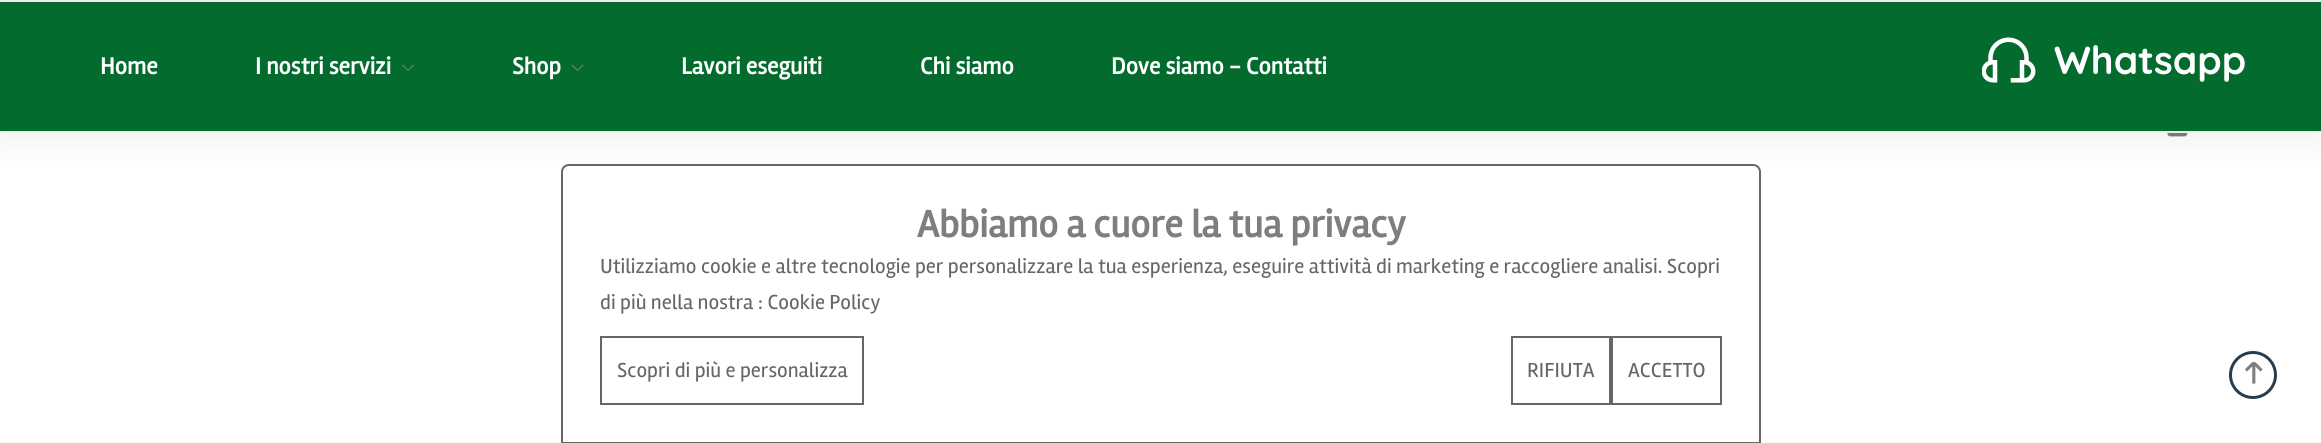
#include <cairo.h>
#include <math.h>
#include <stddef.h>

typedef struct { double x, y; const char *s; } line_t;
typedef struct { double x, y, w, h; unsigned color; } box_t;

static void ink(cairo_t *ctx, unsigned color) {
    cairo_set_source_rgb(ctx, (color >> 16) / 255.0, (color >> 8 & 255) / 255.0, (color & 255) / 255.0);
}

static void round_path(cairo_t *ctx, double x, double y, double w, double h, double r) {
    cairo_new_sub_path(ctx);
    cairo_arc(ctx, x + w - r, y + h - r, r, 0, M_PI / 2);
    cairo_arc(ctx, x + r, y + h - r, r, M_PI / 2, M_PI);
    cairo_arc(ctx, x + r, y + r, r, M_PI, 1.5 * M_PI);
    cairo_arc(ctx, x + w - r, y + r, r, 1.5 * M_PI, 2 * M_PI);
    cairo_close_path(ctx);
}

static void blur_box(cairo_t *ctx, double x, double y, double w, double h, double r, double blur, double alpha) {
    cairo_push_group_with_content(ctx, CAIRO_CONTENT_ALPHA);
    cairo_set_operator(ctx, CAIRO_OPERATOR_SOURCE);
    for (int i = 15; i >= -15 && fmin(w, h) + blur * i / 3 > 0; i -= 2) {
        double e = blur * i / 6;
        cairo_set_source_rgba(ctx, 0, 0, 0, alpha * erfc((i - 1) / 8.5) / 2);
        round_path(ctx, x - e, y - e, w + 2 * e, h + 2 * e, fmax(0, fmin(r + e + blur * .6, fmin(w, h) / 2 + e)));
        cairo_fill(ctx);
    }
    cairo_pattern_t *soft = cairo_pop_group(ctx);
    cairo_mask(ctx, soft);
    cairo_pattern_destroy(soft);
}

static void paste(cairo_t *ctx, const char *path, double x, double y, double w, double h) {
    cairo_surface_t *image = cairo_image_surface_create_from_png(path);
    cairo_save(ctx);
    cairo_set_source_surface(ctx, image, x, y);
    cairo_rectangle(ctx, x, y, w, h);
    cairo_fill(ctx);
    cairo_restore(ctx);
    cairo_surface_destroy(image);
}

int main(void) {
    cairo_surface_t *surface = cairo_image_surface_create(CAIRO_FORMAT_RGB24, 2321, 443);
    cairo_t *ctx = cairo_create(surface);
    cairo_font_options_t *options = cairo_font_options_create();
    cairo_font_options_set_hint_metrics(options, CAIRO_HINT_METRICS_OFF);
    cairo_font_options_set_hint_style(options, CAIRO_HINT_STYLE_NONE);
    cairo_set_font_options(ctx, options);
    cairo_set_miter_limit(ctx, 4);
    ink(ctx, 0xFFFFFF);
    cairo_paint(ctx);
    paste(ctx, "media/4.png", 2167, 133, 21, 4);
    cairo_new_path(ctx);
    cairo_move_to(ctx, 569, 165);
    cairo_line_to(ctx, 1753, 165);
    cairo_curve_to(ctx, 1757, 165, 1760, 168, 1760, 172);
    cairo_line_to(ctx, 1760, 443);
    cairo_line_to(ctx, 562, 443);
    cairo_line_to(ctx, 562, 172);
    cairo_curve_to(ctx, 562, 168, 565, 165, 569, 165);
    cairo_close_path(ctx);
    ink(ctx, 0x666666);
    cairo_stroke(ctx);
    ink(ctx, 0x000000);
    blur_box(ctx, 0, 12, 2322, 132, 0, 15, 0.05);
    {
        static const box_t items[] = {
            {0, 2, 2321, 129, 0x036B2E},
            {0, 0, 2321, 2, 0xECECEC},
            {0, 131, 2321, 2, 0xECECEC},
        };
        for (size_t i = 0; i < sizeof items / sizeof *items; i++) {
            ink(ctx, items[i].color);
            cairo_rectangle(ctx, items[i].x, items[i].y, items[i].w, items[i].h);
            cairo_fill(ctx);
        }
    }
    cairo_select_font_face(ctx, "Rambla", CAIRO_FONT_SLANT_NORMAL, CAIRO_FONT_WEIGHT_BOLD);
    cairo_set_font_size(ctx, 24);
    ink(ctx, 0xFFFFFF);
    cairo_move_to(ctx, 100, 74);
    cairo_show_text(ctx, "Home");
    cairo_move_to(ctx, 255, 74);
    cairo_show_text(ctx, "I nostri servizi");
    paste(ctx, "media/1.png", 402, 64, 12, 7);
    cairo_move_to(ctx, 512, 74);
    cairo_show_text(ctx, "Shop");
    paste(ctx, "media/2.png", 571, 64, 13, 7);
    {
        static const line_t items[] = {
            {681, 74, "Lavori eseguiti"},
            {920, 74, "Chi siamo"},
            {1111, 74, "Dove siamo - Contatti"},
        };
        for (size_t i = 0; i < sizeof items / sizeof *items; i++) {
            cairo_move_to(ctx, items[i].x, items[i].y);
            cairo_show_text(ctx, items[i].s);
        }
    }
    paste(ctx, "media/3.png", 1982, 37, 54, 46);
    cairo_select_font_face(ctx, "Quicksand", CAIRO_FONT_SLANT_NORMAL, CAIRO_FONT_WEIGHT_BOLD);
    cairo_set_font_size(ctx, 39);
    cairo_move_to(ctx, 2054, 74);
    cairo_show_text(ctx, "Whatsapp");
    cairo_select_font_face(ctx, "Rambla", CAIRO_FONT_SLANT_NORMAL, CAIRO_FONT_WEIGHT_BOLD);
    ink(ctx, 0x7E7E7E);
    cairo_move_to(ctx, 917, 237);
    cairo_show_text(ctx, "Abbiamo a cuore la tua privacy");
    cairo_select_font_face(ctx, "Rambla", CAIRO_FONT_SLANT_NORMAL, CAIRO_FONT_WEIGHT_NORMAL);
    cairo_set_font_size(ctx, 21);
    ink(ctx, 0x666666);
    cairo_move_to(ctx, 600, 273);
    cairo_show_text(ctx, "Utilizziamo cookie e altre tecnologie per personalizzare la tua esperienza, eseguire attività di marketing e raccogliere analisi. Scopri");
    cairo_move_to(ctx, 600, 309);
    cairo_show_text(ctx, "di più nella nostra : Cookie Policy");
    cairo_rectangle(ctx, 601, 337, 262, 67);
    cairo_stroke(ctx);
    cairo_move_to(ctx, 617, 377);
    cairo_show_text(ctx, "Scopri di più e personalizza");
    cairo_rectangle(ctx, 1512, 337, 98, 67);
    cairo_stroke(ctx);
    cairo_move_to(ctx, 1527, 377);
    cairo_show_text(ctx, "RIFIUTA");
    cairo_rectangle(ctx, 1612, 337, 109, 67);
    cairo_stroke(ctx);
    cairo_move_to(ctx, 1628, 377);
    cairo_show_text(ctx, "ACCETTO");
    cairo_new_path(ctx);
    cairo_arc(ctx, 2253, 375, 22.5, 0, 2 * M_PI);
    ink(ctx, 0x253D4E);
    cairo_set_line_width(ctx, 3);
    cairo_stroke(ctx);
    paste(ctx, "media/5.png", 2245, 361, 18, 23);
    cairo_surface_write_to_png(surface, "image.png");
    cairo_font_options_destroy(options);
    cairo_destroy(ctx);
    cairo_surface_destroy(surface);
    return 0;
}
